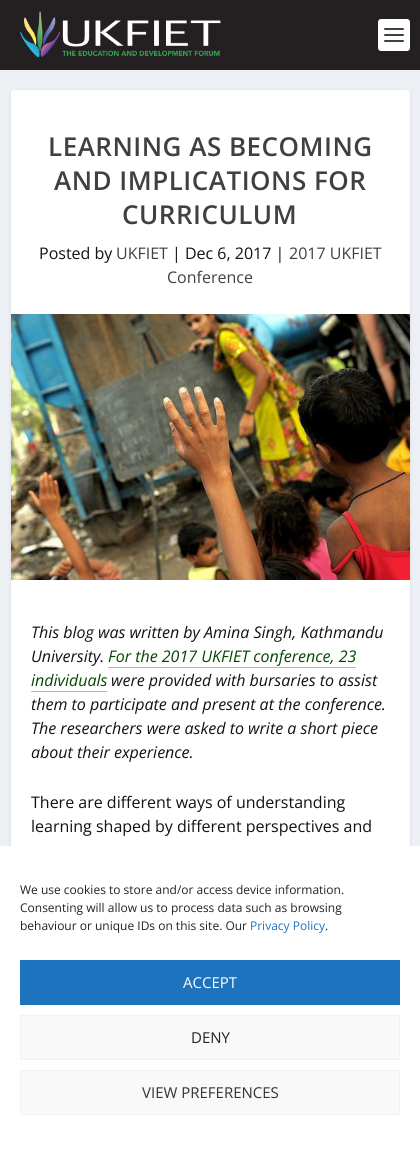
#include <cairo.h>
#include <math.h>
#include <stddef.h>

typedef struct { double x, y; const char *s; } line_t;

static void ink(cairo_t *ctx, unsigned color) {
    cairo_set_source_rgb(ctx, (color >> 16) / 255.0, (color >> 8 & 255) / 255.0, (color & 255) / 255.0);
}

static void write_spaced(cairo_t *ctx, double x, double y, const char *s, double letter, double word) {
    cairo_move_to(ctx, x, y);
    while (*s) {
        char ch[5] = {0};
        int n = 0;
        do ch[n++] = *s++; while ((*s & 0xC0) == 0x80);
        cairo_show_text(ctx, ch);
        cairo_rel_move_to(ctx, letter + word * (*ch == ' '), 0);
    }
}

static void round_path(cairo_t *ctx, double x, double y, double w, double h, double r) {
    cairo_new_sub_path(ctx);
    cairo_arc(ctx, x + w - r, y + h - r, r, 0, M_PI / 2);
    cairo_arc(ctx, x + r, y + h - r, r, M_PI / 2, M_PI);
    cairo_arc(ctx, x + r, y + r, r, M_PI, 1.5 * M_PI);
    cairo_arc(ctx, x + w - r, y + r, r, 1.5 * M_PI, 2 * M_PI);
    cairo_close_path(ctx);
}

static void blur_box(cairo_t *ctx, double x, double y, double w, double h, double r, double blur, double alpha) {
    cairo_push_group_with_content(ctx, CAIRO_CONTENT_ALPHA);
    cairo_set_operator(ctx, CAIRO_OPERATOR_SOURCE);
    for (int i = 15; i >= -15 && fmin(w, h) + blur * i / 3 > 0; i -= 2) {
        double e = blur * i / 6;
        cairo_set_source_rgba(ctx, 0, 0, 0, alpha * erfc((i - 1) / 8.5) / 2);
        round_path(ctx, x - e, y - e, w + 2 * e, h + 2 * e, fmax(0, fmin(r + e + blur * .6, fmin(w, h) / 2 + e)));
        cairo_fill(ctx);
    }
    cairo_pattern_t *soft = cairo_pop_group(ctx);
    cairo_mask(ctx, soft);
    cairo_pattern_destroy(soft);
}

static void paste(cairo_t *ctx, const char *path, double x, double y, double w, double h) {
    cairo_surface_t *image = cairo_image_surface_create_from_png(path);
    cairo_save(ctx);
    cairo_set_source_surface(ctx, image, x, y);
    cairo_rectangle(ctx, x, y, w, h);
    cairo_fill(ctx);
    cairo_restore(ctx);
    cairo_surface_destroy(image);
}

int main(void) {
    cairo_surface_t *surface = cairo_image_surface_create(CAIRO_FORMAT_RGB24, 420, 1151);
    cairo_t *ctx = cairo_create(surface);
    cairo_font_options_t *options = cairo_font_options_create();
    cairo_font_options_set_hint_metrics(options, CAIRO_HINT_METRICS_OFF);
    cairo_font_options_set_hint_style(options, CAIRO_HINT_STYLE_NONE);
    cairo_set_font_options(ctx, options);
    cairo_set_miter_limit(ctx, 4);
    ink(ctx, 0xECF0F5);
    cairo_paint(ctx);
    ink(ctx, 0x241F21);
    cairo_rectangle(ctx, 0, 0, 420, 70);
    cairo_fill(ctx);
    paste(ctx, "media/1.png", 20, 11, 201, 47);
    ink(ctx, 0xFFFFFF);
    round_path(ctx, 378, 19, 32, 32, 3);
    cairo_fill(ctx);
    ink(ctx, 0x404040);
    round_path(ctx, 384, 28, 20, 2, 1);
    cairo_fill(ctx);
    round_path(ctx, 384, 34, 20, 2, 1);
    cairo_fill(ctx);
    round_path(ctx, 384, 40, 20, 2, 1);
    cairo_fill(ctx);
    ink(ctx, 0x000000);
    blur_box(ctx, 11, 91, 399, 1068, 3, 1.5, 0.1);
    ink(ctx, 0xFFFFFF);
    round_path(ctx, 11, 90, 399, 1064, 3);
    cairo_fill(ctx);
    cairo_select_font_face(ctx, "Open Sans SemiBold", CAIRO_FONT_SLANT_NORMAL, CAIRO_FONT_WEIGHT_NORMAL);
    cairo_set_font_size(ctx, 26);
    ink(ctx, 0x404040);
    {
        static const line_t items[] = {
            {48, 156, "LEARNING AS BECOMING"},
            {54, 190, "AND IMPLICATIONS FOR"},
            {122, 224, "CURRICULUM"},
        };
        for (size_t i = 0; i < sizeof items / sizeof *items; i++) {
            write_spaced(ctx, items[i].x, items[i].y, items[i].s, 0.5, 0);
        }
    }
    cairo_select_font_face(ctx, "Open Sans", CAIRO_FONT_SLANT_NORMAL, CAIRO_FONT_WEIGHT_NORMAL);
    cairo_set_font_size(ctx, 16);
    ink(ctx, 0x121212);
    cairo_move_to(ctx, 39, 259);
    cairo_show_text(ctx, "Posted by");
    ink(ctx, 0x404040);
    cairo_move_to(ctx, 116, 259);
    cairo_show_text(ctx, "UKFIET");
    ink(ctx, 0x121212);
    cairo_move_to(ctx, 172, 259);
    cairo_show_text(ctx, "| Dec 6, 2017 |");
    ink(ctx, 0x404040);
    cairo_move_to(ctx, 289, 259);
    cairo_show_text(ctx, "2017 UKFIET");
    cairo_move_to(ctx, 167, 283);
    cairo_show_text(ctx, "Conference");
    paste(ctx, "media/2.png", 11, 314, 399, 266);
    cairo_select_font_face(ctx, "Open Sans", CAIRO_FONT_SLANT_ITALIC, CAIRO_FONT_WEIGHT_NORMAL);
    ink(ctx, 0x121212);
    cairo_move_to(ctx, 31, 638);
    cairo_show_text(ctx, "This blog was written by Amina Singh, Kathmandu");
    cairo_move_to(ctx, 31, 662);
    cairo_show_text(ctx, "University.");
    ink(ctx, 0x034700);
    cairo_move_to(ctx, 108, 662);
    cairo_show_text(ctx, "For the 2017 UKFIET conference, 23");
    ink(ctx, 0xB6B6B6);
    cairo_rectangle(ctx, 108, 667, 248, 1);
    cairo_fill(ctx);
    ink(ctx, 0x034700);
    cairo_move_to(ctx, 31, 686);
    cairo_show_text(ctx, "individuals");
    ink(ctx, 0xB6B6B6);
    cairo_rectangle(ctx, 31, 691, 76, 1);
    cairo_fill(ctx);
    ink(ctx, 0x121212);
    {
        static const line_t items[] = {
            {111, 686, "were provided with bursaries to assist"},
            {31, 710, "them to participate and present at the conference."},
            {31, 734, "The researchers were asked to write a short piece"},
            {31, 758, "about their experience."},
        };
        for (size_t i = 0; i < sizeof items / sizeof *items; i++) {
            cairo_move_to(ctx, items[i].x, items[i].y);
            cairo_show_text(ctx, items[i].s);
        }
    }
    cairo_select_font_face(ctx, "Open Sans", CAIRO_FONT_SLANT_NORMAL, CAIRO_FONT_WEIGHT_NORMAL);
    cairo_move_to(ctx, 31, 808);
    cairo_show_text(ctx, "There are different ways of understanding");
    cairo_move_to(ctx, 31, 832);
    cairo_show_text(ctx, "learning shaped by different perspectives and");
    ink(ctx, 0xFFFFFF);
    cairo_rectangle(ctx, 0, 846, 420, 305);
    cairo_fill(ctx);
    cairo_set_font_size(ctx, 12);
    ink(ctx, 0x222222);
    {
        static const line_t items[] = {
            {20, 894, "We use cookies to store and/or access device information."},
            {20, 912, "Consenting will allow us to process data such as browsing"},
            {20, 930, "behaviour or unique IDs on this site. Our"},
        };
        for (size_t i = 0; i < sizeof items / sizeof *items; i++) {
            cairo_move_to(ctx, items[i].x, items[i].y);
            cairo_show_text(ctx, items[i].s);
        }
    }
    ink(ctx, 0x1E73BE);
    cairo_move_to(ctx, 250, 930);
    cairo_show_text(ctx, "Privacy Policy");
    ink(ctx, 0x222222);
    cairo_move_to(ctx, 325, 930);
    cairo_show_text(ctx, ".");
    ink(ctx, 0x1E73BE);
    cairo_rectangle(ctx, 20, 960, 380, 45);
    cairo_fill(ctx);
    cairo_set_font_size(ctx, 15);
    ink(ctx, 0xFFFFFF);
    cairo_move_to(ctx, 183, 988);
    cairo_show_text(ctx, "ACCEPT");
    ink(ctx, 0xF9F9F9);
    cairo_rectangle(ctx, 20.5, 1015.5, 379, 44);
    cairo_fill_preserve(ctx);
    ink(ctx, 0xF2F2F2);
    cairo_set_line_width(ctx, 1);
    cairo_stroke(ctx);
    ink(ctx, 0x222222);
    cairo_move_to(ctx, 191, 1043);
    cairo_show_text(ctx, "DENY");
    ink(ctx, 0xF9F9F9);
    cairo_rectangle(ctx, 20.5, 1070.5, 379, 44);
    cairo_fill_preserve(ctx);
    ink(ctx, 0xF2F2F2);
    cairo_stroke(ctx);
    ink(ctx, 0x333333);
    cairo_move_to(ctx, 142, 1098);
    cairo_show_text(ctx, "VIEW PREFERENCES");
    cairo_surface_write_to_png(surface, "image.png");
    cairo_font_options_destroy(options);
    cairo_destroy(ctx);
    cairo_surface_destroy(surface);
    return 0;
}
